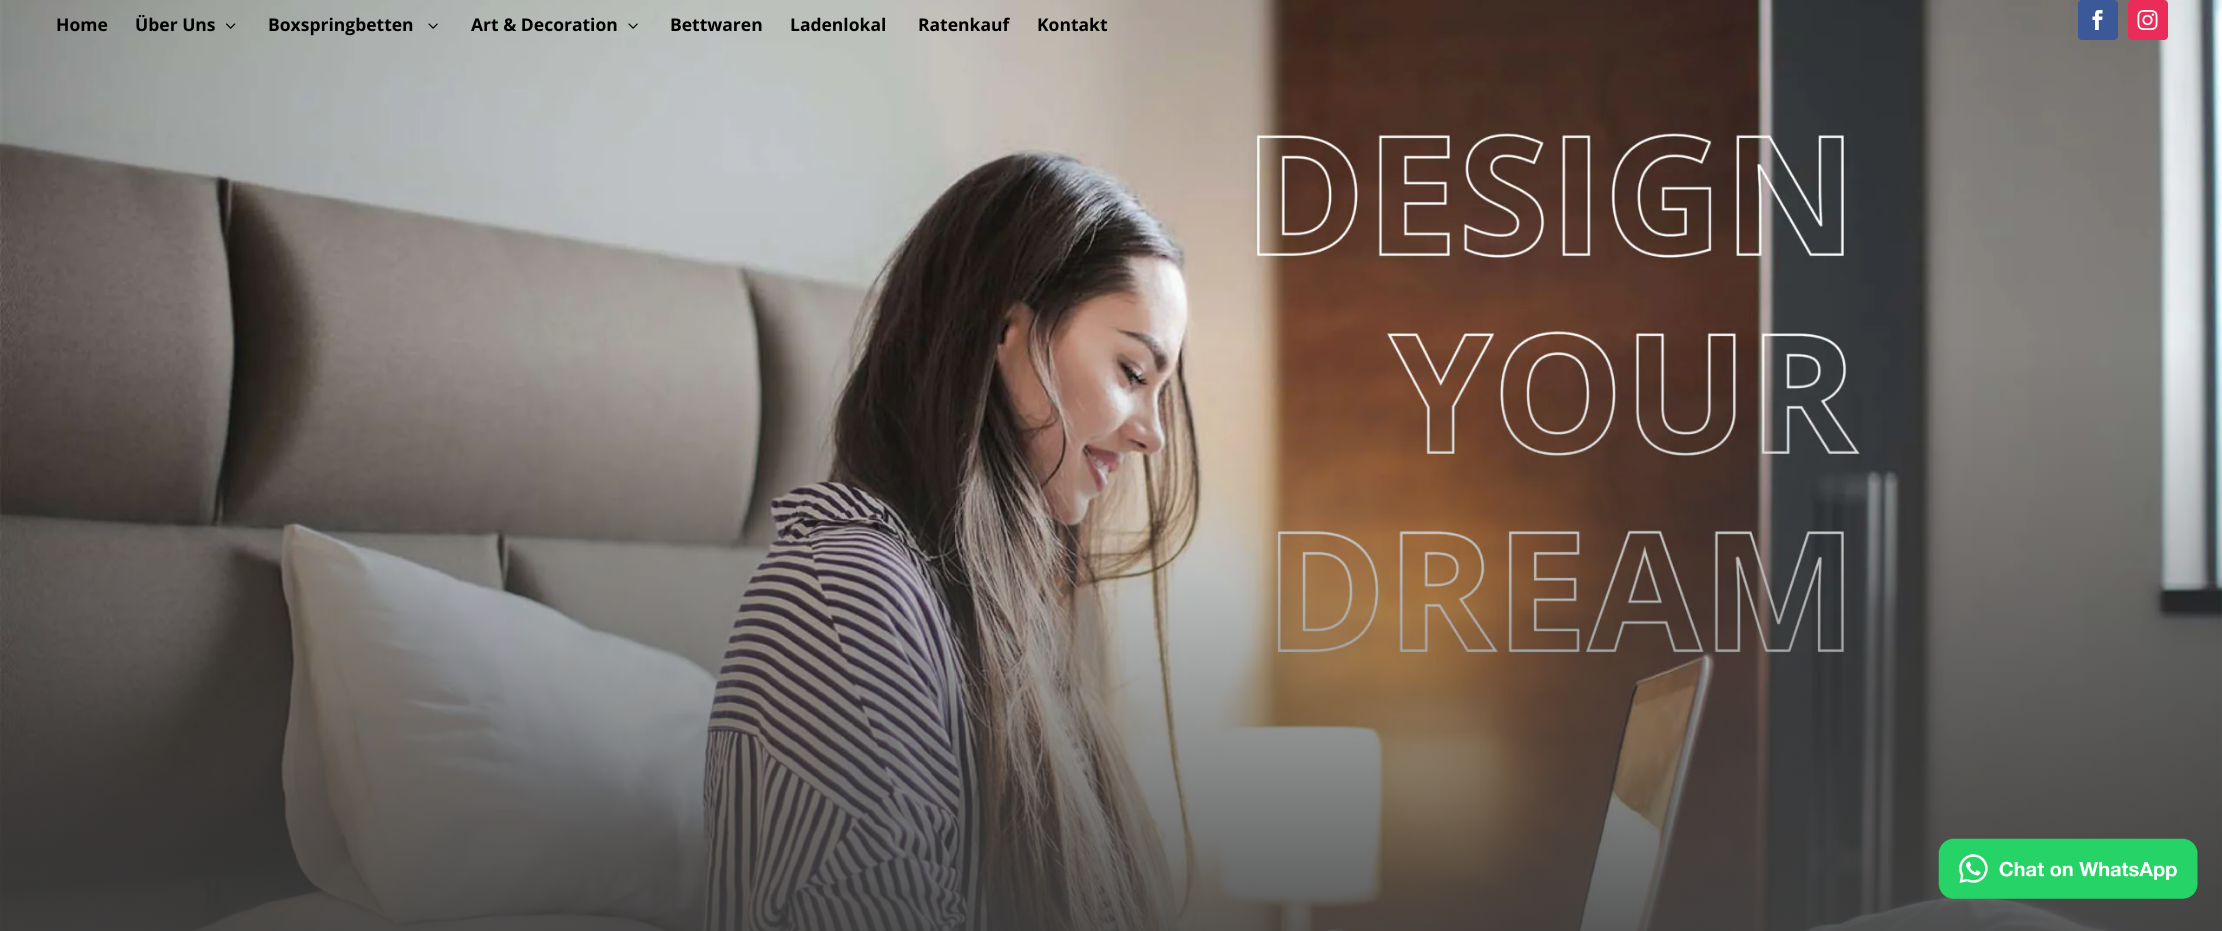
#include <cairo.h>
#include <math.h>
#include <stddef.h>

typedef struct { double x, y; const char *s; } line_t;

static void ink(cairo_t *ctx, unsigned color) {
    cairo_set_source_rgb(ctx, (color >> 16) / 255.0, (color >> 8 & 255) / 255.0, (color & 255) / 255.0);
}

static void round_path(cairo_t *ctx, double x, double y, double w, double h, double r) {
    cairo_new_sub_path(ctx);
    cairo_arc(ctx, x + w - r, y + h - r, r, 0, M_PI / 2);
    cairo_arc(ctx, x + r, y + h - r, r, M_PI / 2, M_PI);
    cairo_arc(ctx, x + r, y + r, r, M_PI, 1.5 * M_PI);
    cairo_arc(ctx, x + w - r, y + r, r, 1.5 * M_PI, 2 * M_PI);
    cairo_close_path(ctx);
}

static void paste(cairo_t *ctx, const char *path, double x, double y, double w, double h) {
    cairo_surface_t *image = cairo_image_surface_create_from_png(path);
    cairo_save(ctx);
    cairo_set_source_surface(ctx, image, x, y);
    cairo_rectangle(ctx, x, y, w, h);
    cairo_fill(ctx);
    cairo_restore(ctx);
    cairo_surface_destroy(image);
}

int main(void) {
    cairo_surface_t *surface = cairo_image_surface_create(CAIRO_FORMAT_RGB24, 2222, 931);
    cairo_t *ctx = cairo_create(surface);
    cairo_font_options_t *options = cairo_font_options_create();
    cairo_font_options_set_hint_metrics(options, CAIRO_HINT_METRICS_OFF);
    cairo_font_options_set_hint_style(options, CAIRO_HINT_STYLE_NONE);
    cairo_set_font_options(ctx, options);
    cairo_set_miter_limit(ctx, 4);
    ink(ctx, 0xFFFFFF);
    cairo_paint(ctx);
    paste(ctx, "media/1.png", 0, 0, 2222, 931);
    cairo_select_font_face(ctx, "Open Sans", CAIRO_FONT_SLANT_NORMAL, CAIRO_FONT_WEIGHT_BOLD);
    cairo_set_font_size(ctx, 17.5);
    ink(ctx, 0x000000);
    cairo_move_to(ctx, 56, 31);
    cairo_show_text(ctx, "Home");
    cairo_move_to(ctx, 135, 31);
    cairo_show_text(ctx, "Über Uns");
    paste(ctx, "media/2.png", 226, 23, 10, 6);
    cairo_move_to(ctx, 268, 31);
    cairo_show_text(ctx, "Boxspringbetten");
    paste(ctx, "media/3.png", 428, 23, 10, 6);
    cairo_move_to(ctx, 471, 31);
    cairo_show_text(ctx, "Art & Decoration");
    paste(ctx, "media/4.png", 628, 23, 10, 6);
    {
        static const line_t items[] = {
            {670, 31, "Bettwaren"},
            {790, 31, "Ladenlokal"},
            {918, 31, "Ratenkauf"},
            {1037, 31, "Kontakt"},
        };
        for (size_t i = 0; i < sizeof items / sizeof *items; i++) {
            cairo_move_to(ctx, items[i].x, items[i].y);
            cairo_show_text(ctx, items[i].s);
        }
    }
    ink(ctx, 0x3B5998);
    round_path(ctx, 2078, 0, 40, 40, 4);
    cairo_fill(ctx);
    paste(ctx, "media/5.png", 2092, 10, 11, 20);
    ink(ctx, 0xEA2C59);
    round_path(ctx, 2128, 0, 40, 40, 4);
    cairo_fill(ctx);
    paste(ctx, "media/6.png", 2137, 10, 21, 20);
    paste(ctx, "media/7.png", 1938, 838, 260, 61);
    cairo_surface_write_to_png(surface, "image.png");
    cairo_font_options_destroy(options);
    cairo_destroy(ctx);
    cairo_surface_destroy(surface);
    return 0;
}
